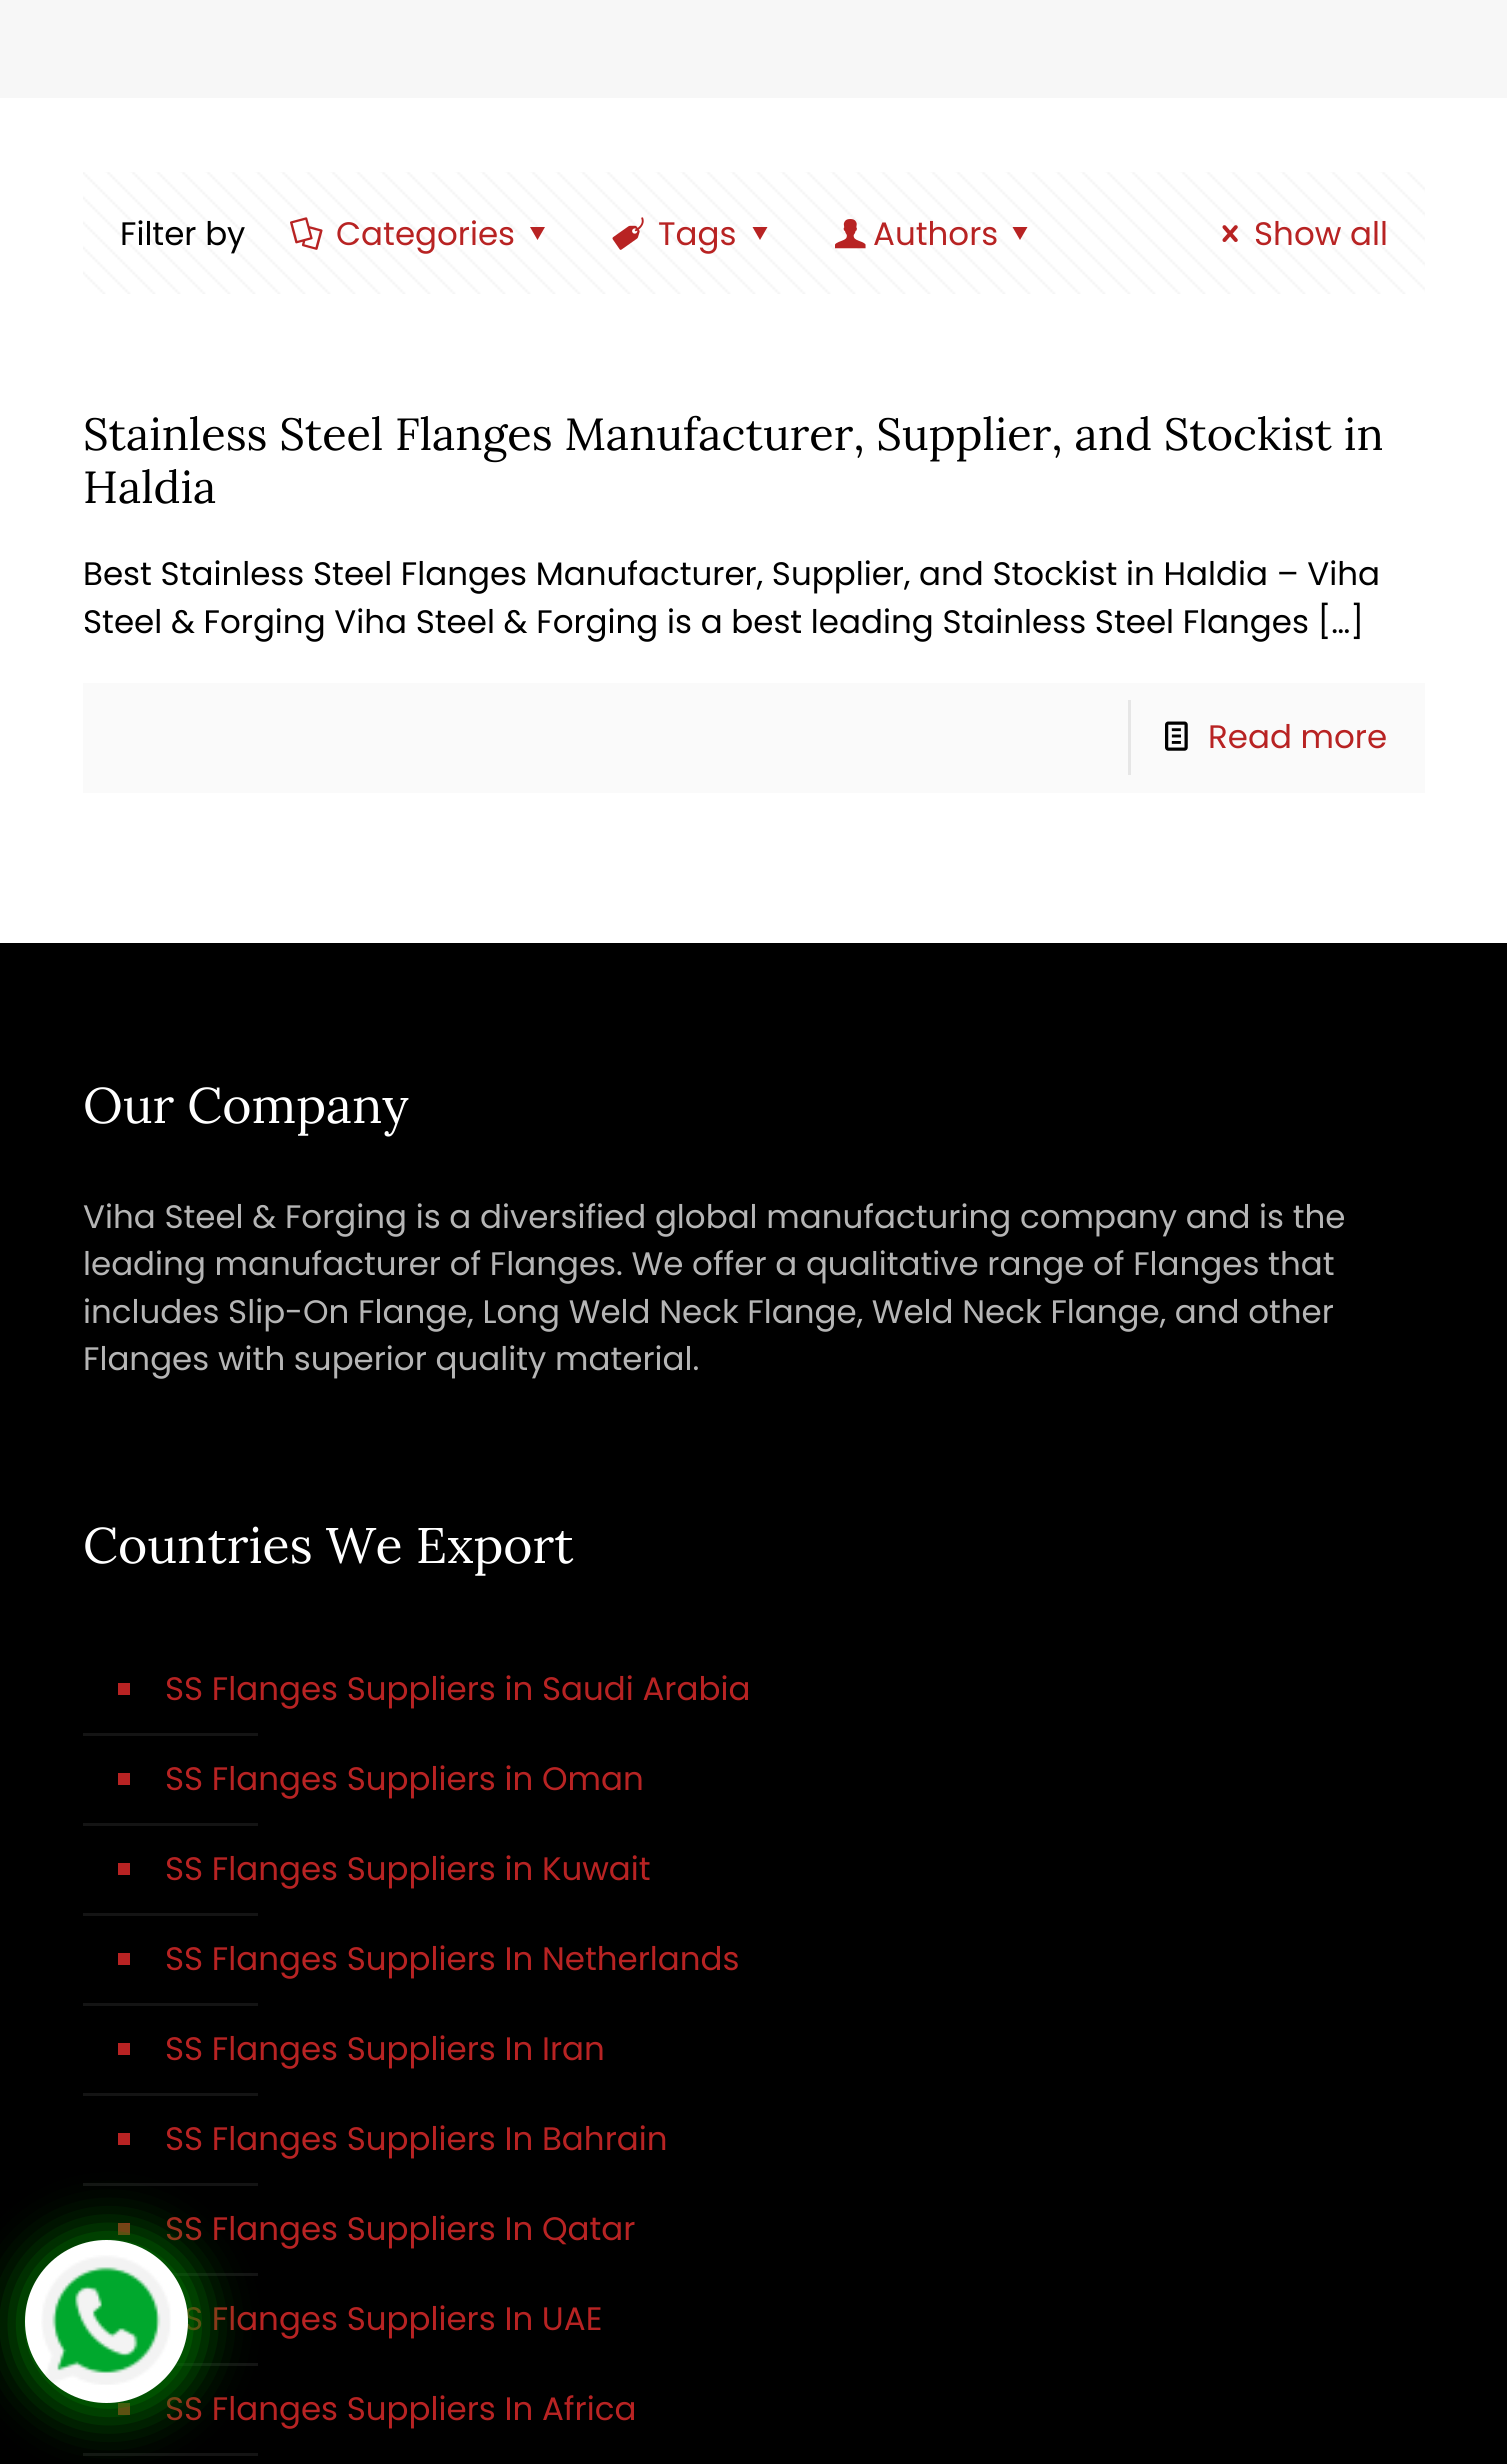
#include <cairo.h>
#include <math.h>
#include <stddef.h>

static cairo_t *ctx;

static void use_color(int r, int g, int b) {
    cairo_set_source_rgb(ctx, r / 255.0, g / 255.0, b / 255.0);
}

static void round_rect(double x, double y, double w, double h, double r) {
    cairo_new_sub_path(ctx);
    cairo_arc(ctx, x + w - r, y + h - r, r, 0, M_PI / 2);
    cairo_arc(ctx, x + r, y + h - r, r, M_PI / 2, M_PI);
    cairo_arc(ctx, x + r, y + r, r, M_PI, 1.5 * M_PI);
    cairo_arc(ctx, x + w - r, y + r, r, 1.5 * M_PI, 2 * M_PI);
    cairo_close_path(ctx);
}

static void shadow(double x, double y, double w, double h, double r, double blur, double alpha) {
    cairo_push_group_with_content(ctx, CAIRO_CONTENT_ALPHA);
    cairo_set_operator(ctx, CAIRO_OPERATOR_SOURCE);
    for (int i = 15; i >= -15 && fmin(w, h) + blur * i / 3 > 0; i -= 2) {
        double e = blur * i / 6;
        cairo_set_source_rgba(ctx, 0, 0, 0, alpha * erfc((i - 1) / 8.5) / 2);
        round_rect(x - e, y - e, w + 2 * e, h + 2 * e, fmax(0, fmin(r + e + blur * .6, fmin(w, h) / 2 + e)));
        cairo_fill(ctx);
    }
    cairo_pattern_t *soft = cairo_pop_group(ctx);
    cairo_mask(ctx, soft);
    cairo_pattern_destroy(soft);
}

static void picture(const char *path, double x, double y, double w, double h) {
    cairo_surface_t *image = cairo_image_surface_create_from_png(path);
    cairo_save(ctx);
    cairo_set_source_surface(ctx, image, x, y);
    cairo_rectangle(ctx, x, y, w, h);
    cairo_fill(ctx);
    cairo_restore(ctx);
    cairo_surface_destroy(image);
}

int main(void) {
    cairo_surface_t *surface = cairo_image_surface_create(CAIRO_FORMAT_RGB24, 1507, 2464);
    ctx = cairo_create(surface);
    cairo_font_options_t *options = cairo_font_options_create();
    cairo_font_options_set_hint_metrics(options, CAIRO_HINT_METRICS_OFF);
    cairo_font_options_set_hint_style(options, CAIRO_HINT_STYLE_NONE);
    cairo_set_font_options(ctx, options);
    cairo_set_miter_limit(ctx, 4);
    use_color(255, 255, 255);
    cairo_paint(ctx);
    use_color(247, 247, 247);
    cairo_rectangle(ctx, 0, 0, 1507, 98);
    cairo_fill(ctx);
    picture("img1.png", 83, 172, 1342, 122);
    cairo_select_font_face(ctx, "Poppins", CAIRO_FONT_SLANT_NORMAL, CAIRO_FONT_WEIGHT_NORMAL);
    cairo_set_font_size(ctx, 32.5);
    use_color(0, 0, 0);
    cairo_move_to(ctx, 120, 245);
    cairo_show_text(ctx, "Filter by");
    picture("img2.png", 290, 217, 33, 33);
    use_color(184, 35, 35);
    cairo_move_to(ctx, 336, 245);
    cairo_show_text(ctx, "Categories");
    cairo_new_path(ctx);
    cairo_move_to(ctx, 545, 227);
    cairo_line_to(ctx, 537.5, 240);
    cairo_line_to(ctx, 530, 227);
    cairo_close_path(ctx);
    cairo_fill(ctx);
    picture("img3.png", 612, 217, 32, 33);
    cairo_move_to(ctx, 658, 245);
    cairo_show_text(ctx, "Tags");
    cairo_new_path(ctx);
    cairo_move_to(ctx, 767.5, 227);
    cairo_line_to(ctx, 760, 240);
    cairo_line_to(ctx, 752.5, 227);
    cairo_close_path(ctx);
    cairo_fill(ctx);
    picture("img4.png", 835, 219, 31, 30);
    cairo_move_to(ctx, 873, 245);
    cairo_show_text(ctx, "Authors");
    cairo_new_path(ctx);
    cairo_move_to(ctx, 1027.5, 227);
    cairo_line_to(ctx, 1020, 240);
    cairo_line_to(ctx, 1012.5, 227);
    cairo_close_path(ctx);
    cairo_fill(ctx);
    picture("img5.png", 1222, 225, 16, 17);
    cairo_move_to(ctx, 1254, 245);
    cairo_show_text(ctx, "Show all");
    cairo_select_font_face(ctx, "Lora", CAIRO_FONT_SLANT_NORMAL, CAIRO_FONT_WEIGHT_NORMAL);
    cairo_set_font_size(ctx, 45);
    use_color(0, 0, 0);
    cairo_move_to(ctx, 83, 450);
    cairo_show_text(ctx, "Stainless Steel Flanges Manufacturer, Supplier, and Stockist in");
    cairo_move_to(ctx, 83, 503);
    cairo_show_text(ctx, "Haldia");
    cairo_select_font_face(ctx, "Poppins", CAIRO_FONT_SLANT_NORMAL, CAIRO_FONT_WEIGHT_NORMAL);
    cairo_set_font_size(ctx, 32.5);
    cairo_move_to(ctx, 83, 585);
    cairo_show_text(ctx, "Best Stainless Steel Flanges Manufacturer, Supplier, and Stockist in Haldia – Viha");
    cairo_move_to(ctx, 83, 633);
    cairo_show_text(ctx, "Steel & Forging Viha Steel & Forging is a best leading Stainless Steel Flanges […]");
    use_color(250, 250, 250);
    cairo_rectangle(ctx, 83, 683, 1342, 110);
    cairo_fill(ctx);
    use_color(230, 230, 230);
    cairo_rectangle(ctx, 1128, 700, 3, 75);
    cairo_fill(ctx);
    picture("img6.png", 1165, 721, 23, 30);
    use_color(184, 35, 35);
    cairo_move_to(ctx, 1208, 748);
    cairo_show_text(ctx, "Read more");
    use_color(0, 0, 0);
    cairo_rectangle(ctx, 0, 943, 1507, 1521);
    cairo_fill(ctx);
    cairo_select_font_face(ctx, "Lora", CAIRO_FONT_SLANT_NORMAL, CAIRO_FONT_WEIGHT_NORMAL);
    cairo_set_font_size(ctx, 50);
    use_color(255, 255, 255);
    cairo_move_to(ctx, 83, 1123);
    cairo_show_text(ctx, "Our Company");
    cairo_select_font_face(ctx, "Poppins", CAIRO_FONT_SLANT_NORMAL, CAIRO_FONT_WEIGHT_NORMAL);
    cairo_set_font_size(ctx, 32.5);
    use_color(181, 181, 181);
    cairo_move_to(ctx, 83, 1228);
    cairo_show_text(ctx, "Viha Steel & Forging is a diversified global manufacturing company and is the");
    cairo_move_to(ctx, 83, 1275);
    cairo_show_text(ctx, "leading manufacturer of Flanges. We offer a qualitative range of Flanges that");
    cairo_move_to(ctx, 83, 1323);
    cairo_show_text(ctx, "includes Slip-On Flange, Long Weld Neck Flange, Weld Neck Flange, and other");
    cairo_move_to(ctx, 83, 1370);
    cairo_show_text(ctx, "Flanges with superior quality material.");
    cairo_select_font_face(ctx, "Lora", CAIRO_FONT_SLANT_NORMAL, CAIRO_FONT_WEIGHT_NORMAL);
    cairo_set_font_size(ctx, 50);
    use_color(255, 255, 255);
    cairo_move_to(ctx, 83, 1563);
    cairo_show_text(ctx, "Countries We Export");
    use_color(184, 35, 35);
    cairo_rectangle(ctx, 118, 1683, 12, 12);
    cairo_fill(ctx);
    cairo_select_font_face(ctx, "Poppins", CAIRO_FONT_SLANT_NORMAL, CAIRO_FONT_WEIGHT_NORMAL);
    cairo_set_font_size(ctx, 32.5);
    cairo_move_to(ctx, 165, 1700);
    cairo_show_text(ctx, "SS Flanges Suppliers in Saudi Arabia");
    use_color(20, 20, 20);
    cairo_rectangle(ctx, 83, 1733, 175, 3);
    cairo_fill(ctx);
    use_color(184, 35, 35);
    cairo_rectangle(ctx, 118, 1773, 12, 12);
    cairo_fill(ctx);
    cairo_move_to(ctx, 165, 1790);
    cairo_show_text(ctx, "SS Flanges Suppliers in Oman");
    use_color(20, 20, 20);
    cairo_rectangle(ctx, 83, 1823, 175, 3);
    cairo_fill(ctx);
    use_color(184, 35, 35);
    cairo_rectangle(ctx, 118, 1863, 12, 12);
    cairo_fill(ctx);
    cairo_move_to(ctx, 165, 1880);
    cairo_show_text(ctx, "SS Flanges Suppliers in Kuwait");
    use_color(20, 20, 20);
    cairo_rectangle(ctx, 83, 1913, 175, 3);
    cairo_fill(ctx);
    use_color(184, 35, 35);
    cairo_rectangle(ctx, 118, 1953, 12, 12);
    cairo_fill(ctx);
    cairo_move_to(ctx, 165, 1970);
    cairo_show_text(ctx, "SS Flanges Suppliers In Netherlands");
    use_color(20, 20, 20);
    cairo_rectangle(ctx, 83, 2003, 175, 3);
    cairo_fill(ctx);
    use_color(184, 35, 35);
    cairo_rectangle(ctx, 118, 2043, 12, 12);
    cairo_fill(ctx);
    cairo_move_to(ctx, 165, 2060);
    cairo_show_text(ctx, "SS Flanges Suppliers In Iran");
    use_color(20, 20, 20);
    cairo_rectangle(ctx, 83, 2093, 175, 3);
    cairo_fill(ctx);
    use_color(184, 35, 35);
    cairo_rectangle(ctx, 118, 2133, 12, 12);
    cairo_fill(ctx);
    cairo_move_to(ctx, 165, 2150);
    cairo_show_text(ctx, "SS Flanges Suppliers In Bahrain");
    use_color(20, 20, 20);
    cairo_rectangle(ctx, 83, 2183, 175, 3);
    cairo_fill(ctx);
    use_color(184, 35, 35);
    cairo_rectangle(ctx, 118, 2223, 12, 12);
    cairo_fill(ctx);
    cairo_move_to(ctx, 165, 2240);
    cairo_show_text(ctx, "SS Flanges Suppliers In Qatar");
    use_color(20, 20, 20);
    cairo_rectangle(ctx, 172, 2273, 86, 3);
    cairo_fill(ctx);
    use_color(184, 35, 35);
    cairo_move_to(ctx, 184, 2330);
    cairo_show_text(ctx, "S Flanges Suppliers In UAE");
    use_color(20, 20, 20);
    cairo_rectangle(ctx, 174, 2363, 84, 3);
    cairo_fill(ctx);
    use_color(184, 35, 35);
    cairo_rectangle(ctx, 118, 2403, 12, 12);
    cairo_fill(ctx);
    cairo_move_to(ctx, 165, 2420);
    cairo_show_text(ctx, "SS Flanges Suppliers In Africa");
    use_color(20, 20, 20);
    cairo_rectangle(ctx, 83, 2453, 175, 3);
    cairo_fill(ctx);
    use_color(0, 128, 0);
    shadow(20, 2235, 178, 178, 89, 25, 1);
    use_color(255, 255, 255);
    cairo_arc(ctx, 106.5, 2321.5, 81.5, 0, 2 * M_PI);
    cairo_fill(ctx);
    picture("img7.png", 41, 2255, 130, 130);
    cairo_surface_write_to_png(surface, "result.png");
    cairo_font_options_destroy(options);
    cairo_destroy(ctx);
    cairo_surface_destroy(surface);
    return 0;
}
